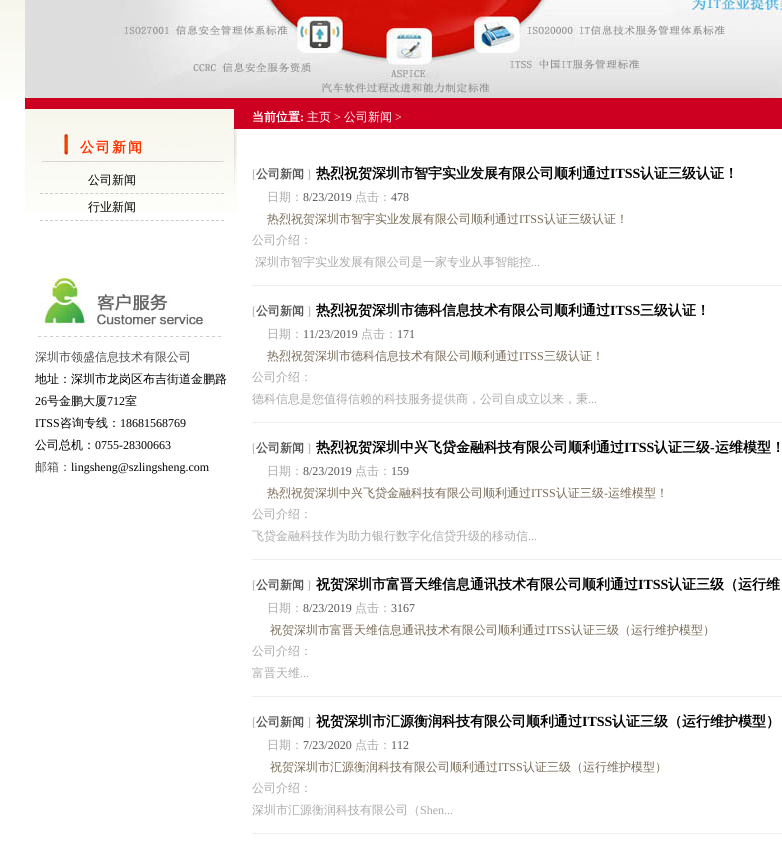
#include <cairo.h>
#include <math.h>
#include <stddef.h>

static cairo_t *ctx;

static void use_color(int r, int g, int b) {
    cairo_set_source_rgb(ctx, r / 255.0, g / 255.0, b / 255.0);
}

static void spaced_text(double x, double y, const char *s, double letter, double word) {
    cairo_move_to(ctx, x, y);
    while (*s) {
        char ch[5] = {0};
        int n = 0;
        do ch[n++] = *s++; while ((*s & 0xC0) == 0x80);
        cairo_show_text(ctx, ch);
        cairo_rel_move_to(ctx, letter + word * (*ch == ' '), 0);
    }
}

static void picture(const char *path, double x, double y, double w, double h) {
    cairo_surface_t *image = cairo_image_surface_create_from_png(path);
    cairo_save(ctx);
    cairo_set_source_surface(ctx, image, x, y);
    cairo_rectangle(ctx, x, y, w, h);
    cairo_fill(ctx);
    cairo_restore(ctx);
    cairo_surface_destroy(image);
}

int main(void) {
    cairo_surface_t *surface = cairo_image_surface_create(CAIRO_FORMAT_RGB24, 782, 850);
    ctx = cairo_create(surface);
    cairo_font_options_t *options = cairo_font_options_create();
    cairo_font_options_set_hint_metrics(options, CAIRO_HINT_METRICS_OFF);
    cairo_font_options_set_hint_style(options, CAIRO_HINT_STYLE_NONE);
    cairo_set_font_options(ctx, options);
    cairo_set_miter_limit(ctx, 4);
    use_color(255, 255, 255);
    cairo_paint(ctx);
    picture("img1.png", 0, 0, 25, 99);
    picture("img2.png", 25, 0, 757, 98);
    use_color(206, 0, 33);
    cairo_rectangle(ctx, 25, 98, 757, 31);
    cairo_fill(ctx);
    cairo_select_font_face(ctx, "WenQuanYi Zen Hei", CAIRO_FONT_SLANT_NORMAL, CAIRO_FONT_WEIGHT_BOLD);
    cairo_set_font_size(ctx, 12);
    use_color(255, 255, 255);
    cairo_move_to(ctx, 252, 121);
    cairo_show_text(ctx, "当前位置");
    cairo_select_font_face(ctx, "Liberation Serif", CAIRO_FONT_SLANT_NORMAL, CAIRO_FONT_WEIGHT_BOLD);
    cairo_move_to(ctx, 300, 121);
    cairo_show_text(ctx, ":");
    cairo_select_font_face(ctx, "WenQuanYi Zen Hei Medium", CAIRO_FONT_SLANT_NORMAL, CAIRO_FONT_WEIGHT_NORMAL);
    cairo_move_to(ctx, 307, 121);
    cairo_show_text(ctx, "主页");
    cairo_select_font_face(ctx, "Liberation Serif", CAIRO_FONT_SLANT_NORMAL, CAIRO_FONT_WEIGHT_NORMAL);
    cairo_move_to(ctx, 334, 121);
    cairo_show_text(ctx, ">");
    cairo_select_font_face(ctx, "WenQuanYi Zen Hei Medium", CAIRO_FONT_SLANT_NORMAL, CAIRO_FONT_WEIGHT_NORMAL);
    cairo_move_to(ctx, 344, 121);
    cairo_show_text(ctx, "公司新闻");
    cairo_select_font_face(ctx, "Liberation Serif", CAIRO_FONT_SLANT_NORMAL, CAIRO_FONT_WEIGHT_NORMAL);
    cairo_move_to(ctx, 395, 121);
    cairo_show_text(ctx, ">");
    picture("img3.png", 25, 109, 212, 104);
    cairo_select_font_face(ctx, "WenQuanYi Zen Hei", CAIRO_FONT_SLANT_NORMAL, CAIRO_FONT_WEIGHT_BOLD);
    cairo_set_font_size(ctx, 14);
    use_color(255, 51, 0);
    spaced_text(80, 152, "公司新闻", 2, 0);
    cairo_new_path(ctx);
    cairo_move_to(ctx, 40, 193.5);
    cairo_line_to(ctx, 224, 193.5);
    use_color(204, 204, 204);
    cairo_set_line_width(ctx, 1);
    cairo_set_dash(ctx, (double[]){3, 2.03}, 2, 0);
    cairo_stroke(ctx);
    cairo_select_font_face(ctx, "WenQuanYi Zen Hei Medium", CAIRO_FONT_SLANT_NORMAL, CAIRO_FONT_WEIGHT_NORMAL);
    cairo_set_font_size(ctx, 12);
    use_color(0, 0, 0);
    cairo_move_to(ctx, 88, 184);
    cairo_show_text(ctx, "公司新闻");
    cairo_new_path(ctx);
    cairo_move_to(ctx, 40, 220.5);
    cairo_line_to(ctx, 224, 220.5);
    use_color(204, 204, 204);
    cairo_stroke(ctx);
    use_color(0, 0, 0);
    cairo_move_to(ctx, 88, 211);
    cairo_show_text(ctx, "行业新闻");
    picture("img4.png", 37, 271, 185, 71);
    use_color(78, 77, 77);
    cairo_move_to(ctx, 35, 361);
    cairo_show_text(ctx, "深圳市领盛信息技术有限公司");
    use_color(0, 0, 0);
    cairo_move_to(ctx, 35, 383);
    cairo_show_text(ctx, "地址：深圳市龙岗区布吉街道金鹏路");
    cairo_select_font_face(ctx, "Liberation Serif", CAIRO_FONT_SLANT_NORMAL, CAIRO_FONT_WEIGHT_NORMAL);
    cairo_move_to(ctx, 35, 405);
    cairo_show_text(ctx, "26");
    cairo_select_font_face(ctx, "WenQuanYi Zen Hei Medium", CAIRO_FONT_SLANT_NORMAL, CAIRO_FONT_WEIGHT_NORMAL);
    cairo_move_to(ctx, 47, 405);
    cairo_show_text(ctx, "号金鹏大厦");
    cairo_select_font_face(ctx, "Liberation Serif", CAIRO_FONT_SLANT_NORMAL, CAIRO_FONT_WEIGHT_NORMAL);
    cairo_move_to(ctx, 107, 405);
    cairo_show_text(ctx, "712");
    cairo_select_font_face(ctx, "WenQuanYi Zen Hei Medium", CAIRO_FONT_SLANT_NORMAL, CAIRO_FONT_WEIGHT_NORMAL);
    cairo_move_to(ctx, 125, 405);
    cairo_show_text(ctx, "室");
    cairo_select_font_face(ctx, "Liberation Serif", CAIRO_FONT_SLANT_NORMAL, CAIRO_FONT_WEIGHT_NORMAL);
    cairo_move_to(ctx, 35, 427);
    cairo_show_text(ctx, "ITSS");
    cairo_select_font_face(ctx, "WenQuanYi Zen Hei Medium", CAIRO_FONT_SLANT_NORMAL, CAIRO_FONT_WEIGHT_NORMAL);
    cairo_move_to(ctx, 60, 427);
    cairo_show_text(ctx, "咨询专线：");
    cairo_select_font_face(ctx, "Liberation Serif", CAIRO_FONT_SLANT_NORMAL, CAIRO_FONT_WEIGHT_NORMAL);
    cairo_move_to(ctx, 120, 427);
    cairo_show_text(ctx, "18681568769");
    cairo_select_font_face(ctx, "WenQuanYi Zen Hei Medium", CAIRO_FONT_SLANT_NORMAL, CAIRO_FONT_WEIGHT_NORMAL);
    cairo_move_to(ctx, 35, 449);
    cairo_show_text(ctx, "公司总机：");
    cairo_select_font_face(ctx, "Liberation Serif", CAIRO_FONT_SLANT_NORMAL, CAIRO_FONT_WEIGHT_NORMAL);
    cairo_move_to(ctx, 95, 449);
    cairo_show_text(ctx, "0755-28300663");
    cairo_select_font_face(ctx, "WenQuanYi Zen Hei Medium", CAIRO_FONT_SLANT_NORMAL, CAIRO_FONT_WEIGHT_NORMAL);
    use_color(78, 77, 77);
    cairo_move_to(ctx, 35, 471);
    cairo_show_text(ctx, "邮箱：");
    cairo_select_font_face(ctx, "Liberation Serif", CAIRO_FONT_SLANT_NORMAL, CAIRO_FONT_WEIGHT_NORMAL);
    use_color(0, 0, 0);
    cairo_move_to(ctx, 71, 471);
    cairo_show_text(ctx, "lingsheng@szlingsheng.com");
    use_color(238, 238, 238);
    cairo_rectangle(ctx, 252, 285, 530, 1);
    cairo_fill(ctx);
    use_color(170, 170, 170);
    cairo_move_to(ctx, 252, 178);
    cairo_show_text(ctx, "[");
    cairo_select_font_face(ctx, "WenQuanYi Zen Hei", CAIRO_FONT_SLANT_NORMAL, CAIRO_FONT_WEIGHT_BOLD);
    use_color(85, 85, 85);
    cairo_move_to(ctx, 256, 178);
    cairo_show_text(ctx, "公司新闻");
    cairo_select_font_face(ctx, "Liberation Serif", CAIRO_FONT_SLANT_NORMAL, CAIRO_FONT_WEIGHT_NORMAL);
    use_color(170, 170, 170);
    cairo_move_to(ctx, 307, 178);
    cairo_show_text(ctx, "]");
    cairo_select_font_face(ctx, "WenQuanYi Zen Hei", CAIRO_FONT_SLANT_NORMAL, CAIRO_FONT_WEIGHT_BOLD);
    cairo_set_font_size(ctx, 14);
    use_color(0, 0, 0);
    cairo_move_to(ctx, 316, 178);
    cairo_show_text(ctx, "热烈祝贺深圳市智宇实业发展有限公司顺利通过");
    cairo_select_font_face(ctx, "Liberation Serif", CAIRO_FONT_SLANT_NORMAL, CAIRO_FONT_WEIGHT_BOLD);
    cairo_move_to(ctx, 610, 178);
    cairo_show_text(ctx, "ITSS");
    cairo_select_font_face(ctx, "WenQuanYi Zen Hei", CAIRO_FONT_SLANT_NORMAL, CAIRO_FONT_WEIGHT_BOLD);
    cairo_move_to(ctx, 640, 178);
    cairo_show_text(ctx, "认证三级认证！");
    cairo_select_font_face(ctx, "WenQuanYi Zen Hei Medium", CAIRO_FONT_SLANT_NORMAL, CAIRO_FONT_WEIGHT_NORMAL);
    cairo_set_font_size(ctx, 12);
    use_color(170, 170, 170);
    cairo_move_to(ctx, 267, 201);
    cairo_show_text(ctx, "日期：");
    cairo_select_font_face(ctx, "Liberation Serif", CAIRO_FONT_SLANT_NORMAL, CAIRO_FONT_WEIGHT_NORMAL);
    use_color(85, 85, 85);
    cairo_move_to(ctx, 303, 201);
    cairo_show_text(ctx, "8/23/2019");
    cairo_select_font_face(ctx, "WenQuanYi Zen Hei Medium", CAIRO_FONT_SLANT_NORMAL, CAIRO_FONT_WEIGHT_NORMAL);
    use_color(170, 170, 170);
    cairo_move_to(ctx, 355, 201);
    cairo_show_text(ctx, "点击：");
    cairo_select_font_face(ctx, "Liberation Serif", CAIRO_FONT_SLANT_NORMAL, CAIRO_FONT_WEIGHT_NORMAL);
    use_color(85, 85, 85);
    cairo_move_to(ctx, 391, 201);
    cairo_show_text(ctx, "478");
    cairo_select_font_face(ctx, "WenQuanYi Zen Hei Medium", CAIRO_FONT_SLANT_NORMAL, CAIRO_FONT_WEIGHT_NORMAL);
    use_color(119, 105, 85);
    cairo_move_to(ctx, 267, 223);
    cairo_show_text(ctx, "热烈祝贺深圳市智宇实业发展有限公司顺利通过");
    cairo_select_font_face(ctx, "Liberation Serif", CAIRO_FONT_SLANT_NORMAL, CAIRO_FONT_WEIGHT_NORMAL);
    cairo_move_to(ctx, 519, 223);
    cairo_show_text(ctx, "ITSS");
    cairo_select_font_face(ctx, "WenQuanYi Zen Hei Medium", CAIRO_FONT_SLANT_NORMAL, CAIRO_FONT_WEIGHT_NORMAL);
    cairo_move_to(ctx, 544, 223);
    cairo_show_text(ctx, "认证三级认证！");
    use_color(170, 170, 170);
    cairo_move_to(ctx, 252, 244);
    cairo_show_text(ctx, "公司介绍：");
    cairo_move_to(ctx, 255, 266);
    cairo_show_text(ctx, "深圳市智宇实业发展有限公司是一家专业从事智能控");
    cairo_select_font_face(ctx, "Liberation Serif", CAIRO_FONT_SLANT_NORMAL, CAIRO_FONT_WEIGHT_NORMAL);
    cairo_move_to(ctx, 531, 266);
    cairo_show_text(ctx, "...");
    use_color(238, 238, 238);
    cairo_rectangle(ctx, 252, 422, 530, 1);
    cairo_fill(ctx);
    use_color(170, 170, 170);
    cairo_move_to(ctx, 252, 315);
    cairo_show_text(ctx, "[");
    cairo_select_font_face(ctx, "WenQuanYi Zen Hei", CAIRO_FONT_SLANT_NORMAL, CAIRO_FONT_WEIGHT_BOLD);
    use_color(85, 85, 85);
    cairo_move_to(ctx, 256, 315);
    cairo_show_text(ctx, "公司新闻");
    cairo_select_font_face(ctx, "Liberation Serif", CAIRO_FONT_SLANT_NORMAL, CAIRO_FONT_WEIGHT_NORMAL);
    use_color(170, 170, 170);
    cairo_move_to(ctx, 307, 315);
    cairo_show_text(ctx, "]");
    cairo_select_font_face(ctx, "WenQuanYi Zen Hei", CAIRO_FONT_SLANT_NORMAL, CAIRO_FONT_WEIGHT_BOLD);
    cairo_set_font_size(ctx, 14);
    use_color(0, 0, 0);
    cairo_move_to(ctx, 316, 315);
    cairo_show_text(ctx, "热烈祝贺深圳市德科信息技术有限公司顺利通过");
    cairo_select_font_face(ctx, "Liberation Serif", CAIRO_FONT_SLANT_NORMAL, CAIRO_FONT_WEIGHT_BOLD);
    cairo_move_to(ctx, 610, 315);
    cairo_show_text(ctx, "ITSS");
    cairo_select_font_face(ctx, "WenQuanYi Zen Hei", CAIRO_FONT_SLANT_NORMAL, CAIRO_FONT_WEIGHT_BOLD);
    cairo_move_to(ctx, 640, 315);
    cairo_show_text(ctx, "三级认证！");
    cairo_select_font_face(ctx, "WenQuanYi Zen Hei Medium", CAIRO_FONT_SLANT_NORMAL, CAIRO_FONT_WEIGHT_NORMAL);
    cairo_set_font_size(ctx, 12);
    use_color(170, 170, 170);
    cairo_move_to(ctx, 267, 338);
    cairo_show_text(ctx, "日期：");
    cairo_select_font_face(ctx, "Liberation Serif", CAIRO_FONT_SLANT_NORMAL, CAIRO_FONT_WEIGHT_NORMAL);
    use_color(85, 85, 85);
    cairo_move_to(ctx, 303, 338);
    cairo_show_text(ctx, "11/23/2019");
    cairo_select_font_face(ctx, "WenQuanYi Zen Hei Medium", CAIRO_FONT_SLANT_NORMAL, CAIRO_FONT_WEIGHT_NORMAL);
    use_color(170, 170, 170);
    cairo_move_to(ctx, 361, 338);
    cairo_show_text(ctx, "点击：");
    cairo_select_font_face(ctx, "Liberation Serif", CAIRO_FONT_SLANT_NORMAL, CAIRO_FONT_WEIGHT_NORMAL);
    use_color(85, 85, 85);
    cairo_move_to(ctx, 397, 338);
    cairo_show_text(ctx, "171");
    cairo_select_font_face(ctx, "WenQuanYi Zen Hei Medium", CAIRO_FONT_SLANT_NORMAL, CAIRO_FONT_WEIGHT_NORMAL);
    use_color(119, 105, 85);
    cairo_move_to(ctx, 267, 360);
    cairo_show_text(ctx, "热烈祝贺深圳市德科信息技术有限公司顺利通过");
    cairo_select_font_face(ctx, "Liberation Serif", CAIRO_FONT_SLANT_NORMAL, CAIRO_FONT_WEIGHT_NORMAL);
    cairo_move_to(ctx, 519, 360);
    cairo_show_text(ctx, "ITSS");
    cairo_select_font_face(ctx, "WenQuanYi Zen Hei Medium", CAIRO_FONT_SLANT_NORMAL, CAIRO_FONT_WEIGHT_NORMAL);
    cairo_move_to(ctx, 544, 360);
    cairo_show_text(ctx, "三级认证！");
    use_color(170, 170, 170);
    cairo_move_to(ctx, 252, 381);
    cairo_show_text(ctx, "公司介绍：");
    cairo_move_to(ctx, 252, 403);
    cairo_show_text(ctx, "德科信息是您值得信赖的科技服务提供商，公司自成立以来，秉");
    cairo_select_font_face(ctx, "Liberation Serif", CAIRO_FONT_SLANT_NORMAL, CAIRO_FONT_WEIGHT_NORMAL);
    cairo_move_to(ctx, 588, 403);
    cairo_show_text(ctx, "...");
    use_color(238, 238, 238);
    cairo_rectangle(ctx, 252, 559, 530, 1);
    cairo_fill(ctx);
    use_color(170, 170, 170);
    cairo_move_to(ctx, 252, 452);
    cairo_show_text(ctx, "[");
    cairo_select_font_face(ctx, "WenQuanYi Zen Hei", CAIRO_FONT_SLANT_NORMAL, CAIRO_FONT_WEIGHT_BOLD);
    use_color(85, 85, 85);
    cairo_move_to(ctx, 256, 452);
    cairo_show_text(ctx, "公司新闻");
    cairo_select_font_face(ctx, "Liberation Serif", CAIRO_FONT_SLANT_NORMAL, CAIRO_FONT_WEIGHT_NORMAL);
    use_color(170, 170, 170);
    cairo_move_to(ctx, 307, 452);
    cairo_show_text(ctx, "]");
    cairo_select_font_face(ctx, "WenQuanYi Zen Hei", CAIRO_FONT_SLANT_NORMAL, CAIRO_FONT_WEIGHT_BOLD);
    cairo_set_font_size(ctx, 14);
    use_color(0, 0, 0);
    cairo_move_to(ctx, 316, 452);
    cairo_show_text(ctx, "热烈祝贺深圳中兴飞贷金融科技有限公司顺利通过");
    cairo_select_font_face(ctx, "Liberation Serif", CAIRO_FONT_SLANT_NORMAL, CAIRO_FONT_WEIGHT_BOLD);
    cairo_move_to(ctx, 624, 452);
    cairo_show_text(ctx, "ITSS");
    cairo_select_font_face(ctx, "WenQuanYi Zen Hei", CAIRO_FONT_SLANT_NORMAL, CAIRO_FONT_WEIGHT_BOLD);
    cairo_move_to(ctx, 654, 452);
    cairo_show_text(ctx, "认证三级");
    cairo_select_font_face(ctx, "Liberation Serif", CAIRO_FONT_SLANT_NORMAL, CAIRO_FONT_WEIGHT_BOLD);
    cairo_move_to(ctx, 710, 452);
    cairo_show_text(ctx, "-");
    cairo_select_font_face(ctx, "WenQuanYi Zen Hei", CAIRO_FONT_SLANT_NORMAL, CAIRO_FONT_WEIGHT_BOLD);
    cairo_move_to(ctx, 715, 452);
    cairo_show_text(ctx, "运维模型！");
    cairo_select_font_face(ctx, "WenQuanYi Zen Hei Medium", CAIRO_FONT_SLANT_NORMAL, CAIRO_FONT_WEIGHT_NORMAL);
    cairo_set_font_size(ctx, 12);
    use_color(170, 170, 170);
    cairo_move_to(ctx, 267, 475);
    cairo_show_text(ctx, "日期：");
    cairo_select_font_face(ctx, "Liberation Serif", CAIRO_FONT_SLANT_NORMAL, CAIRO_FONT_WEIGHT_NORMAL);
    use_color(85, 85, 85);
    cairo_move_to(ctx, 303, 475);
    cairo_show_text(ctx, "8/23/2019");
    cairo_select_font_face(ctx, "WenQuanYi Zen Hei Medium", CAIRO_FONT_SLANT_NORMAL, CAIRO_FONT_WEIGHT_NORMAL);
    use_color(170, 170, 170);
    cairo_move_to(ctx, 355, 475);
    cairo_show_text(ctx, "点击：");
    cairo_select_font_face(ctx, "Liberation Serif", CAIRO_FONT_SLANT_NORMAL, CAIRO_FONT_WEIGHT_NORMAL);
    use_color(85, 85, 85);
    cairo_move_to(ctx, 391, 475);
    cairo_show_text(ctx, "159");
    cairo_select_font_face(ctx, "WenQuanYi Zen Hei Medium", CAIRO_FONT_SLANT_NORMAL, CAIRO_FONT_WEIGHT_NORMAL);
    use_color(119, 105, 85);
    cairo_move_to(ctx, 267, 497);
    cairo_show_text(ctx, "热烈祝贺深圳中兴飞贷金融科技有限公司顺利通过");
    cairo_select_font_face(ctx, "Liberation Serif", CAIRO_FONT_SLANT_NORMAL, CAIRO_FONT_WEIGHT_NORMAL);
    cairo_move_to(ctx, 531, 497);
    cairo_show_text(ctx, "ITSS");
    cairo_select_font_face(ctx, "WenQuanYi Zen Hei Medium", CAIRO_FONT_SLANT_NORMAL, CAIRO_FONT_WEIGHT_NORMAL);
    cairo_move_to(ctx, 556, 497);
    cairo_show_text(ctx, "认证三级");
    cairo_select_font_face(ctx, "Liberation Serif", CAIRO_FONT_SLANT_NORMAL, CAIRO_FONT_WEIGHT_NORMAL);
    cairo_move_to(ctx, 604, 497);
    cairo_show_text(ctx, "-");
    cairo_select_font_face(ctx, "WenQuanYi Zen Hei Medium", CAIRO_FONT_SLANT_NORMAL, CAIRO_FONT_WEIGHT_NORMAL);
    cairo_move_to(ctx, 608, 497);
    cairo_show_text(ctx, "运维模型！");
    use_color(170, 170, 170);
    cairo_move_to(ctx, 252, 518);
    cairo_show_text(ctx, "公司介绍：");
    cairo_move_to(ctx, 252, 540);
    cairo_show_text(ctx, "飞贷金融科技作为助力银行数字化信贷升级的移动信");
    cairo_select_font_face(ctx, "Liberation Serif", CAIRO_FONT_SLANT_NORMAL, CAIRO_FONT_WEIGHT_NORMAL);
    cairo_move_to(ctx, 528, 540);
    cairo_show_text(ctx, "...");
    use_color(238, 238, 238);
    cairo_rectangle(ctx, 252, 696, 530, 1);
    cairo_fill(ctx);
    use_color(170, 170, 170);
    cairo_move_to(ctx, 252, 589);
    cairo_show_text(ctx, "[");
    cairo_select_font_face(ctx, "WenQuanYi Zen Hei", CAIRO_FONT_SLANT_NORMAL, CAIRO_FONT_WEIGHT_BOLD);
    use_color(85, 85, 85);
    cairo_move_to(ctx, 256, 589);
    cairo_show_text(ctx, "公司新闻");
    cairo_select_font_face(ctx, "Liberation Serif", CAIRO_FONT_SLANT_NORMAL, CAIRO_FONT_WEIGHT_NORMAL);
    use_color(170, 170, 170);
    cairo_move_to(ctx, 307, 589);
    cairo_show_text(ctx, "]");
    cairo_select_font_face(ctx, "WenQuanYi Zen Hei", CAIRO_FONT_SLANT_NORMAL, CAIRO_FONT_WEIGHT_BOLD);
    cairo_set_font_size(ctx, 14);
    use_color(0, 0, 0);
    cairo_move_to(ctx, 316, 589);
    cairo_show_text(ctx, "祝贺深圳市富晋天维信息通讯技术有限公司顺利通过");
    cairo_select_font_face(ctx, "Liberation Serif", CAIRO_FONT_SLANT_NORMAL, CAIRO_FONT_WEIGHT_BOLD);
    cairo_move_to(ctx, 638, 589);
    cairo_show_text(ctx, "ITSS");
    cairo_select_font_face(ctx, "WenQuanYi Zen Hei", CAIRO_FONT_SLANT_NORMAL, CAIRO_FONT_WEIGHT_BOLD);
    cairo_move_to(ctx, 668, 589);
    cairo_show_text(ctx, "认证三级（运行维");
    cairo_select_font_face(ctx, "WenQuanYi Zen Hei Medium", CAIRO_FONT_SLANT_NORMAL, CAIRO_FONT_WEIGHT_NORMAL);
    cairo_set_font_size(ctx, 12);
    use_color(170, 170, 170);
    cairo_move_to(ctx, 267, 612);
    cairo_show_text(ctx, "日期：");
    cairo_select_font_face(ctx, "Liberation Serif", CAIRO_FONT_SLANT_NORMAL, CAIRO_FONT_WEIGHT_NORMAL);
    use_color(85, 85, 85);
    cairo_move_to(ctx, 303, 612);
    cairo_show_text(ctx, "8/23/2019");
    cairo_select_font_face(ctx, "WenQuanYi Zen Hei Medium", CAIRO_FONT_SLANT_NORMAL, CAIRO_FONT_WEIGHT_NORMAL);
    use_color(170, 170, 170);
    cairo_move_to(ctx, 355, 612);
    cairo_show_text(ctx, "点击：");
    cairo_select_font_face(ctx, "Liberation Serif", CAIRO_FONT_SLANT_NORMAL, CAIRO_FONT_WEIGHT_NORMAL);
    use_color(85, 85, 85);
    cairo_move_to(ctx, 391, 612);
    cairo_show_text(ctx, "3167");
    cairo_select_font_face(ctx, "WenQuanYi Zen Hei Medium", CAIRO_FONT_SLANT_NORMAL, CAIRO_FONT_WEIGHT_NORMAL);
    use_color(119, 105, 85);
    cairo_move_to(ctx, 270, 634);
    cairo_show_text(ctx, "祝贺深圳市富晋天维信息通讯技术有限公司顺利通过");
    cairo_select_font_face(ctx, "Liberation Serif", CAIRO_FONT_SLANT_NORMAL, CAIRO_FONT_WEIGHT_NORMAL);
    cairo_move_to(ctx, 546, 634);
    cairo_show_text(ctx, "ITSS");
    cairo_select_font_face(ctx, "WenQuanYi Zen Hei Medium", CAIRO_FONT_SLANT_NORMAL, CAIRO_FONT_WEIGHT_NORMAL);
    cairo_move_to(ctx, 571, 634);
    cairo_show_text(ctx, "认证三级（运行维护模型）");
    use_color(170, 170, 170);
    cairo_move_to(ctx, 252, 655);
    cairo_show_text(ctx, "公司介绍：");
    cairo_move_to(ctx, 252, 677);
    cairo_show_text(ctx, "富晋天维");
    cairo_select_font_face(ctx, "Liberation Serif", CAIRO_FONT_SLANT_NORMAL, CAIRO_FONT_WEIGHT_NORMAL);
    cairo_move_to(ctx, 300, 677);
    cairo_show_text(ctx, "...");
    use_color(238, 238, 238);
    cairo_rectangle(ctx, 252, 833, 530, 1);
    cairo_fill(ctx);
    use_color(170, 170, 170);
    cairo_move_to(ctx, 252, 726);
    cairo_show_text(ctx, "[");
    cairo_select_font_face(ctx, "WenQuanYi Zen Hei", CAIRO_FONT_SLANT_NORMAL, CAIRO_FONT_WEIGHT_BOLD);
    use_color(85, 85, 85);
    cairo_move_to(ctx, 256, 726);
    cairo_show_text(ctx, "公司新闻");
    cairo_select_font_face(ctx, "Liberation Serif", CAIRO_FONT_SLANT_NORMAL, CAIRO_FONT_WEIGHT_NORMAL);
    use_color(170, 170, 170);
    cairo_move_to(ctx, 307, 726);
    cairo_show_text(ctx, "]");
    cairo_select_font_face(ctx, "WenQuanYi Zen Hei", CAIRO_FONT_SLANT_NORMAL, CAIRO_FONT_WEIGHT_BOLD);
    cairo_set_font_size(ctx, 14);
    use_color(0, 0, 0);
    cairo_move_to(ctx, 316, 726);
    cairo_show_text(ctx, "祝贺深圳市汇源衡润科技有限公司顺利通过");
    cairo_select_font_face(ctx, "Liberation Serif", CAIRO_FONT_SLANT_NORMAL, CAIRO_FONT_WEIGHT_BOLD);
    cairo_move_to(ctx, 582, 726);
    cairo_show_text(ctx, "ITSS");
    cairo_select_font_face(ctx, "WenQuanYi Zen Hei", CAIRO_FONT_SLANT_NORMAL, CAIRO_FONT_WEIGHT_BOLD);
    cairo_move_to(ctx, 612, 726);
    cairo_show_text(ctx, "认证三级（运行维护模型）");
    cairo_select_font_face(ctx, "WenQuanYi Zen Hei Medium", CAIRO_FONT_SLANT_NORMAL, CAIRO_FONT_WEIGHT_NORMAL);
    cairo_set_font_size(ctx, 12);
    use_color(170, 170, 170);
    cairo_move_to(ctx, 267, 749);
    cairo_show_text(ctx, "日期：");
    cairo_select_font_face(ctx, "Liberation Serif", CAIRO_FONT_SLANT_NORMAL, CAIRO_FONT_WEIGHT_NORMAL);
    use_color(85, 85, 85);
    cairo_move_to(ctx, 303, 749);
    cairo_show_text(ctx, "7/23/2020");
    cairo_select_font_face(ctx, "WenQuanYi Zen Hei Medium", CAIRO_FONT_SLANT_NORMAL, CAIRO_FONT_WEIGHT_NORMAL);
    use_color(170, 170, 170);
    cairo_move_to(ctx, 355, 749);
    cairo_show_text(ctx, "点击：");
    cairo_select_font_face(ctx, "Liberation Serif", CAIRO_FONT_SLANT_NORMAL, CAIRO_FONT_WEIGHT_NORMAL);
    use_color(85, 85, 85);
    cairo_move_to(ctx, 391, 749);
    cairo_show_text(ctx, "112");
    cairo_select_font_face(ctx, "WenQuanYi Zen Hei Medium", CAIRO_FONT_SLANT_NORMAL, CAIRO_FONT_WEIGHT_NORMAL);
    use_color(119, 105, 85);
    cairo_move_to(ctx, 270, 771);
    cairo_show_text(ctx, "祝贺深圳市汇源衡润科技有限公司顺利通过");
    cairo_select_font_face(ctx, "Liberation Serif", CAIRO_FONT_SLANT_NORMAL, CAIRO_FONT_WEIGHT_NORMAL);
    cairo_move_to(ctx, 498, 771);
    cairo_show_text(ctx, "ITSS");
    cairo_select_font_face(ctx, "WenQuanYi Zen Hei Medium", CAIRO_FONT_SLANT_NORMAL, CAIRO_FONT_WEIGHT_NORMAL);
    cairo_move_to(ctx, 523, 771);
    cairo_show_text(ctx, "认证三级（运行维护模型）");
    use_color(170, 170, 170);
    cairo_move_to(ctx, 252, 792);
    cairo_show_text(ctx, "公司介绍：");
    cairo_move_to(ctx, 252, 814);
    cairo_show_text(ctx, "深圳市汇源衡润科技有限公司（");
    cairo_select_font_face(ctx, "Liberation Serif", CAIRO_FONT_SLANT_NORMAL, CAIRO_FONT_WEIGHT_NORMAL);
    cairo_move_to(ctx, 420, 814);
    cairo_show_text(ctx, "Shen...");
    cairo_surface_write_to_png(surface, "result.png");
    cairo_font_options_destroy(options);
    cairo_destroy(ctx);
    cairo_surface_destroy(surface);
    return 0;
}
